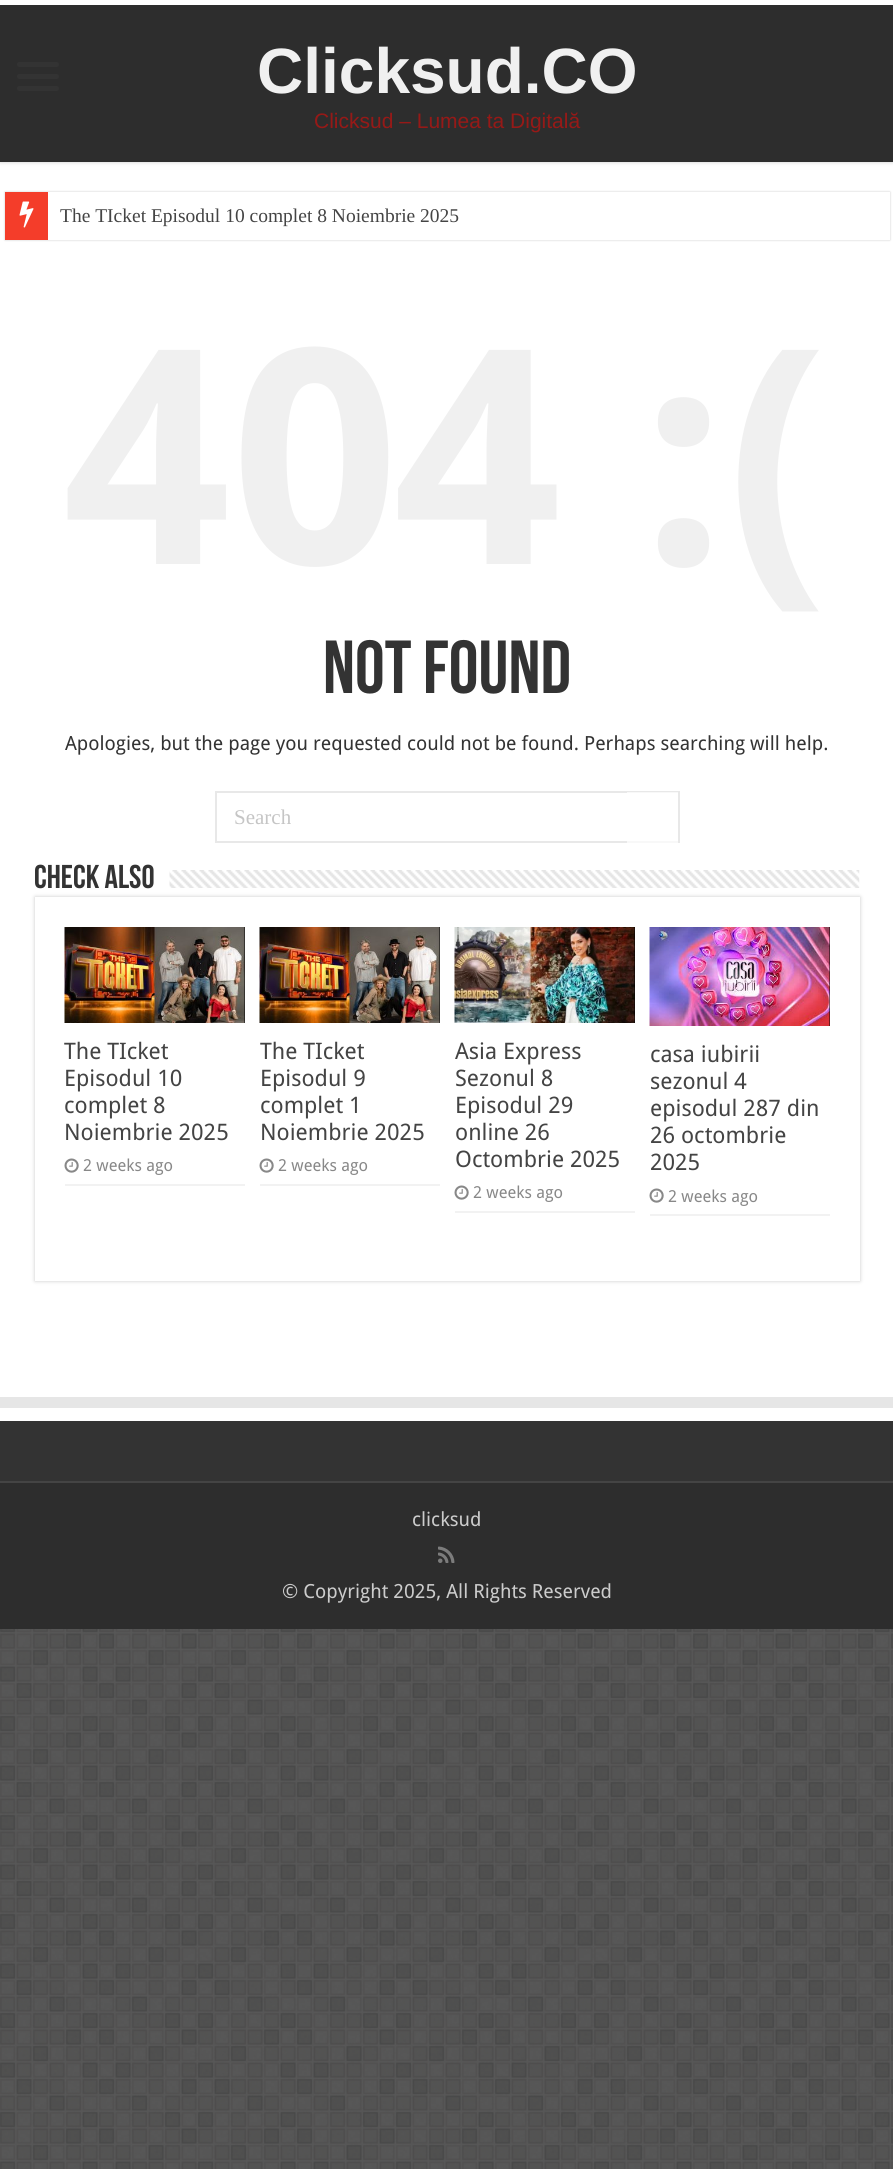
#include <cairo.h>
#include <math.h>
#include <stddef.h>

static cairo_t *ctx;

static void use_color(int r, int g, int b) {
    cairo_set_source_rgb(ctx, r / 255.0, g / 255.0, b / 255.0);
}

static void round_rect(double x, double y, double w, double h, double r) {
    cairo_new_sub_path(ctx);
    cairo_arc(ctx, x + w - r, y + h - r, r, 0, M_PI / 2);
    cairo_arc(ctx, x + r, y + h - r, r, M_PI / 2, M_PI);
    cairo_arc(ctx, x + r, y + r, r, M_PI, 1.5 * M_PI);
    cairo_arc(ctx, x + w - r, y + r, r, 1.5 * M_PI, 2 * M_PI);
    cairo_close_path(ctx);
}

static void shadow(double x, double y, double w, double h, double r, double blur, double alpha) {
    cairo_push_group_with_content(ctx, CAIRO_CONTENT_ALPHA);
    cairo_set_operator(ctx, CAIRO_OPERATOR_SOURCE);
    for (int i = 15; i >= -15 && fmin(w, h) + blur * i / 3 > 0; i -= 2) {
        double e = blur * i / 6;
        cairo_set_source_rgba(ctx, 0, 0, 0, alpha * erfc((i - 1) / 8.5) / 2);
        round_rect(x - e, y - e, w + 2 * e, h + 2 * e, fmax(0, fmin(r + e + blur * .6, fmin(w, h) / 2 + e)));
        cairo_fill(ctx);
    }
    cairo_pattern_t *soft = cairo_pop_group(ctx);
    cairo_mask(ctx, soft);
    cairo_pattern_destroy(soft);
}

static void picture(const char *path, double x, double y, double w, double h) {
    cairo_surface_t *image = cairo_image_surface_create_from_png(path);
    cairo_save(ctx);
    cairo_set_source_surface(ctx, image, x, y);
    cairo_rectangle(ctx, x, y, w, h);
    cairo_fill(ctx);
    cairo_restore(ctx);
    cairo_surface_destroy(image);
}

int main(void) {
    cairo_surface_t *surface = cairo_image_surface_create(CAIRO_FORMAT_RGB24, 893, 2169);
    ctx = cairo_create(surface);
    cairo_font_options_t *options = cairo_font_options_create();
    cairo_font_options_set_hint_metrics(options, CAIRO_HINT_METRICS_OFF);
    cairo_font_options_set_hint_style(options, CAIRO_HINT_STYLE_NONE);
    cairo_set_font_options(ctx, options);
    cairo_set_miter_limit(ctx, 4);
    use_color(45, 45, 45);
    cairo_paint(ctx);
    picture("img1.png", 0, 1629, 893, 540);
    use_color(255, 255, 255);
    cairo_rectangle(ctx, 0, 162, 893, 1259);
    cairo_fill(ctx);
    use_color(202, 202, 202);
    shadow(0, 0, 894, 162, 0, 2, 1);
    use_color(45, 45, 45);
    cairo_rectangle(ctx, 0, 5, 893, 157);
    cairo_fill(ctx);
    use_color(255, 255, 255);
    cairo_rectangle(ctx, 0, 0, 893, 5);
    cairo_fill(ctx);
    use_color(51, 51, 51);
    round_rect(17, 62, 42, 5, 2.5);
    cairo_fill(ctx);
    round_rect(17, 74, 42, 5, 2.5);
    cairo_fill(ctx);
    round_rect(17, 86, 42, 5, 2.5);
    cairo_fill(ctx);
    cairo_select_font_face(ctx, "Liberation Sans", CAIRO_FONT_SLANT_NORMAL, CAIRO_FONT_WEIGHT_BOLD);
    cairo_set_font_size(ctx, 64);
    use_color(240, 240, 240);
    cairo_move_to(ctx, 257, 93);
    cairo_show_text(ctx, "Clicksud.CO");
    cairo_select_font_face(ctx, "Liberation Sans", CAIRO_FONT_SLANT_NORMAL, CAIRO_FONT_WEIGHT_NORMAL);
    cairo_set_font_size(ctx, 21);
    use_color(150, 25, 23);
    cairo_move_to(ctx, 314, 128);
    cairo_show_text(ctx, "Clicksud – Lumea ta Digitală");
    use_color(202, 202, 202);
    shadow(5, 192, 885, 48, 0, 1, 1);
    use_color(255, 255, 255);
    cairo_rectangle(ctx, 48, 192, 842, 48);
    cairo_fill(ctx);
    use_color(244, 61, 42);
    cairo_rectangle(ctx, 5, 192, 43, 48);
    cairo_fill(ctx);
    picture("img2.png", 19, 201, 15, 27);
    cairo_select_font_face(ctx, "Liberation Serif", CAIRO_FONT_SLANT_NORMAL, CAIRO_FONT_WEIGHT_NORMAL);
    cairo_set_font_size(ctx, 19.5);
    use_color(68, 68, 68);
    cairo_move_to(ctx, 60, 222);
    cairo_show_text(ctx, "The TIcket Episodul 10 complet 8 Noiembrie 2025");
    cairo_select_font_face(ctx, "Droid Sans", CAIRO_FONT_SLANT_NORMAL, CAIRO_FONT_WEIGHT_BOLD);
    cairo_set_font_size(ctx, 300);
    use_color(240, 240, 240);
    cairo_move_to(ctx, 67, 564);
    cairo_show_text(ctx, "404 :(");
    cairo_select_font_face(ctx, "Bebas Neue", CAIRO_FONT_SLANT_NORMAL, CAIRO_FONT_WEIGHT_BOLD);
    cairo_set_font_size(ctx, 75);
    use_color(51, 51, 51);
    cairo_move_to(ctx, 323, 693);
    cairo_show_text(ctx, "Not Found");
    cairo_select_font_face(ctx, "Droid Sans", CAIRO_FONT_SLANT_NORMAL, CAIRO_FONT_WEIGHT_NORMAL);
    cairo_set_font_size(ctx, 19.5);
    cairo_move_to(ctx, 65, 750);
    cairo_show_text(ctx, "Apologies, but the page you requested could not be found. Perhaps searching will help.");
    cairo_rectangle(ctx, 216, 792, 463, 50);
    use_color(232, 232, 232);
    cairo_stroke(ctx);
    cairo_select_font_face(ctx, "Liberation Serif", CAIRO_FONT_SLANT_NORMAL, CAIRO_FONT_WEIGHT_NORMAL);
    cairo_set_font_size(ctx, 21);
    use_color(197, 197, 197);
    cairo_move_to(ctx, 234, 824);
    cairo_show_text(ctx, "Search");
    cairo_set_source_rgba(ctx, 1, 1, 1, 0.7);
    cairo_rectangle(ctx, 627, 792, 51, 51);
    cairo_fill(ctx);
    cairo_select_font_face(ctx, "Bebas Neue", CAIRO_FONT_SLANT_NORMAL, CAIRO_FONT_WEIGHT_BOLD);
    cairo_set_font_size(ctx, 33);
    use_color(51, 51, 51);
    cairo_move_to(ctx, 34, 888);
    cairo_show_text(ctx, "Check Also");
    picture("img3.png", 169, 870, 691, 18);
    use_color(202, 202, 202);
    shadow(35, 897, 825, 384, 0, 2, 1);
    use_color(255, 255, 255);
    cairo_rectangle(ctx, 35, 897, 825, 384);
    cairo_fill(ctx);
    use_color(0, 0, 0);
    cairo_rectangle(ctx, 244, 927, 1, 96);
    cairo_fill(ctx);
    picture("img4.png", 64, 927, 181, 96);
    cairo_select_font_face(ctx, "Droid Sans", CAIRO_FONT_SLANT_NORMAL, CAIRO_FONT_WEIGHT_NORMAL);
    cairo_set_font_size(ctx, 22.75);
    use_color(68, 68, 68);
    cairo_move_to(ctx, 64, 1059);
    cairo_show_text(ctx, "The TIcket");
    cairo_move_to(ctx, 64, 1086);
    cairo_show_text(ctx, "Episodul 10");
    cairo_move_to(ctx, 64, 1113);
    cairo_show_text(ctx, "complet 8");
    cairo_move_to(ctx, 64, 1140);
    cairo_show_text(ctx, "Noiembrie 2025");
    use_color(242, 242, 242);
    cairo_rectangle(ctx, 65, 1184, 180, 2);
    cairo_fill(ctx);
    picture("img5.png", 64, 1158, 15, 15);
    cairo_set_font_size(ctx, 16.5);
    use_color(136, 136, 136);
    cairo_move_to(ctx, 83, 1171);
    cairo_show_text(ctx, "2 weeks ago");
    use_color(0, 0, 0);
    cairo_rectangle(ctx, 439, 927, 1, 96);
    cairo_fill(ctx);
    picture("img4.png", 259, 927, 181, 96);
    cairo_set_font_size(ctx, 22.75);
    use_color(68, 68, 68);
    cairo_move_to(ctx, 260, 1059);
    cairo_show_text(ctx, "The TIcket");
    cairo_move_to(ctx, 260, 1086);
    cairo_show_text(ctx, "Episodul 9");
    cairo_move_to(ctx, 260, 1113);
    cairo_show_text(ctx, "complet 1");
    cairo_move_to(ctx, 260, 1140);
    cairo_show_text(ctx, "Noiembrie 2025");
    use_color(242, 242, 242);
    cairo_rectangle(ctx, 260, 1184, 180, 2);
    cairo_fill(ctx);
    picture("img5.png", 259, 1158, 15, 15);
    cairo_set_font_size(ctx, 16.5);
    use_color(136, 136, 136);
    cairo_move_to(ctx, 278, 1171);
    cairo_show_text(ctx, "2 weeks ago");
    use_color(0, 0, 0);
    cairo_rectangle(ctx, 634, 927, 1, 96);
    cairo_fill(ctx);
    picture("img6.png", 454, 927, 181, 96);
    cairo_set_font_size(ctx, 22.75);
    use_color(68, 68, 68);
    cairo_move_to(ctx, 455, 1059);
    cairo_show_text(ctx, "Asia Express");
    cairo_move_to(ctx, 455, 1086);
    cairo_show_text(ctx, "Sezonul 8");
    cairo_move_to(ctx, 455, 1113);
    cairo_show_text(ctx, "Episodul 29");
    cairo_move_to(ctx, 455, 1140);
    cairo_show_text(ctx, "online 26");
    cairo_move_to(ctx, 455, 1167);
    cairo_show_text(ctx, "Octombrie 2025");
    use_color(242, 242, 242);
    cairo_rectangle(ctx, 455, 1211, 180, 2);
    cairo_fill(ctx);
    picture("img5.png", 454, 1185, 15, 15);
    cairo_set_font_size(ctx, 16.5);
    use_color(136, 136, 136);
    cairo_move_to(ctx, 473, 1198);
    cairo_show_text(ctx, "2 weeks ago");
    use_color(0, 0, 0);
    cairo_rectangle(ctx, 829, 927, 1, 99);
    cairo_fill(ctx);
    picture("img7.png", 649, 927, 181, 99);
    cairo_set_font_size(ctx, 22.75);
    use_color(68, 68, 68);
    cairo_move_to(ctx, 650, 1062);
    cairo_show_text(ctx, "casa iubirii");
    cairo_move_to(ctx, 650, 1089);
    cairo_show_text(ctx, "sezonul 4");
    cairo_move_to(ctx, 650, 1116);
    cairo_show_text(ctx, "episodul 287 din");
    cairo_move_to(ctx, 650, 1143);
    cairo_show_text(ctx, "26 octombrie");
    cairo_move_to(ctx, 650, 1170);
    cairo_show_text(ctx, "2025");
    use_color(242, 242, 242);
    cairo_rectangle(ctx, 650, 1214, 180, 2);
    cairo_fill(ctx);
    picture("img5.png", 649, 1188, 15, 15);
    cairo_set_font_size(ctx, 16.5);
    use_color(136, 136, 136);
    cairo_move_to(ctx, 668, 1202);
    cairo_show_text(ctx, "2 weeks ago");
    use_color(230, 230, 230);
    cairo_rectangle(ctx, 0, 1397, 893, 11);
    cairo_fill(ctx);
    use_color(51, 51, 51);
    cairo_rectangle(ctx, 0, 1421, 893, 60);
    cairo_fill(ctx);
    use_color(68, 68, 68);
    cairo_rectangle(ctx, 0, 1481, 893, 2);
    cairo_fill(ctx);
    cairo_set_font_size(ctx, 19.5);
    use_color(204, 204, 204);
    cairo_move_to(ctx, 412, 1526);
    cairo_show_text(ctx, "clicksud");
    picture("img8.png", 438, 1546, 17, 17);
    cairo_move_to(ctx, 282, 1598);
    cairo_show_text(ctx, "© Copyright 2025, All Rights Reserved");
    cairo_surface_write_to_png(surface, "result.png");
    cairo_font_options_destroy(options);
    cairo_destroy(ctx);
    cairo_surface_destroy(surface);
    return 0;
}
